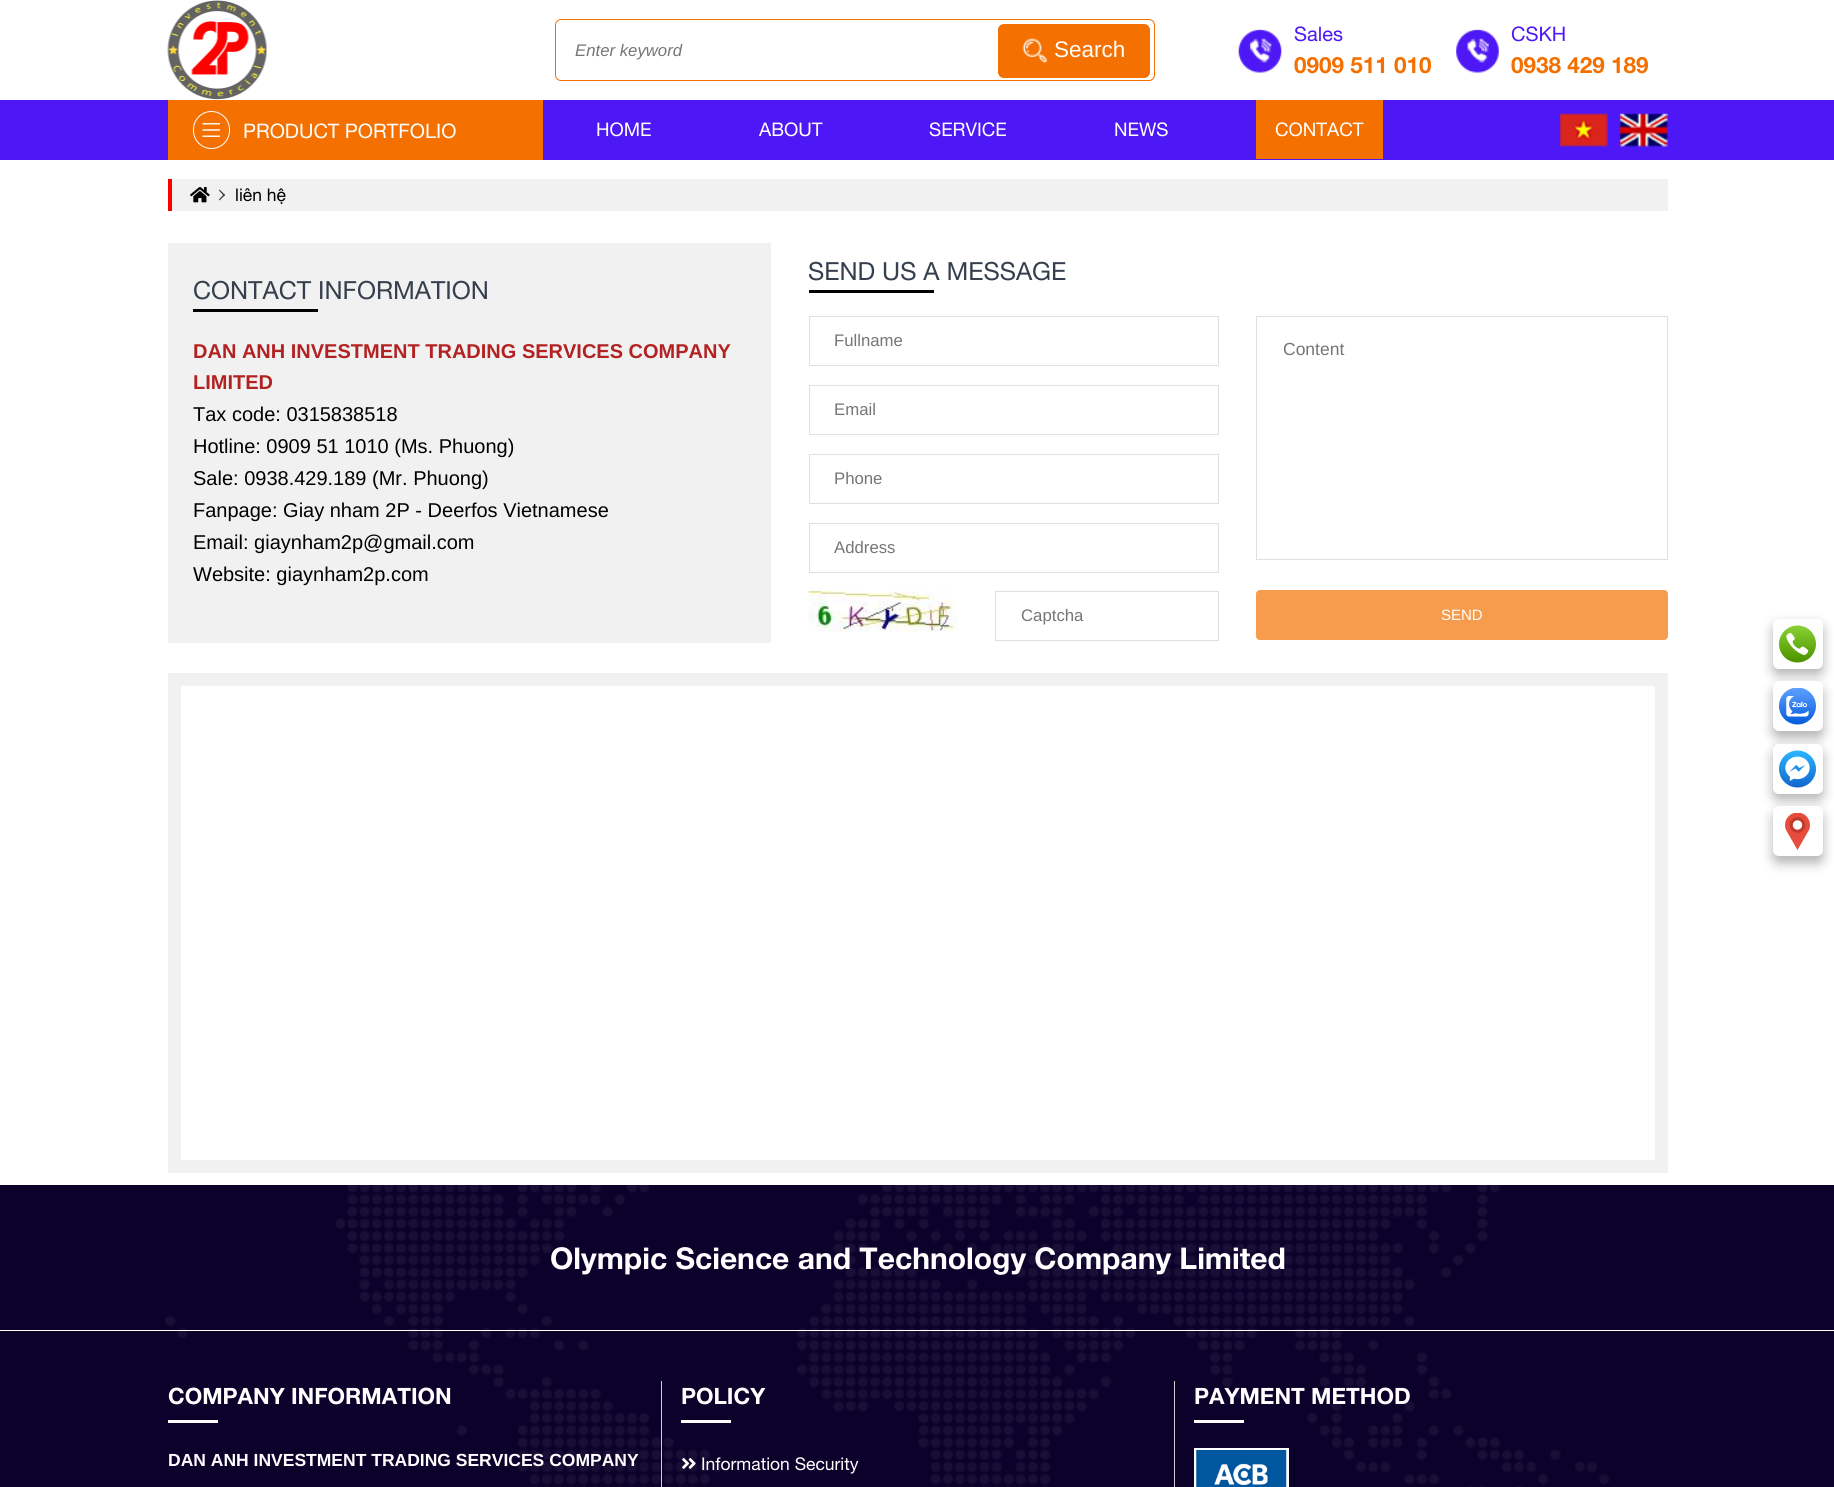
#include <cairo.h>
#include <math.h>
#include <stddef.h>

static cairo_t *ctx;

static void use_color(int r, int g, int b) {
    cairo_set_source_rgb(ctx, r / 255.0, g / 255.0, b / 255.0);
}

static void round_rect(double x, double y, double w, double h, double r) {
    cairo_new_sub_path(ctx);
    cairo_arc(ctx, x + w - r, y + h - r, r, 0, M_PI / 2);
    cairo_arc(ctx, x + r, y + h - r, r, M_PI / 2, M_PI);
    cairo_arc(ctx, x + r, y + r, r, M_PI, 1.5 * M_PI);
    cairo_arc(ctx, x + w - r, y + r, r, 1.5 * M_PI, 2 * M_PI);
    cairo_close_path(ctx);
}

static void shadow(double x, double y, double w, double h, double r, double blur, double alpha) {
    cairo_push_group_with_content(ctx, CAIRO_CONTENT_ALPHA);
    cairo_set_operator(ctx, CAIRO_OPERATOR_SOURCE);
    for (int i = 15; i >= -15 && fmin(w, h) + blur * i / 3 > 0; i -= 2) {
        double e = blur * i / 6;
        cairo_set_source_rgba(ctx, 0, 0, 0, alpha * erfc((i - 1) / 8.5) / 2);
        round_rect(x - e, y - e, w + 2 * e, h + 2 * e, fmax(0, fmin(r + e + blur * .6, fmin(w, h) / 2 + e)));
        cairo_fill(ctx);
    }
    cairo_pattern_t *soft = cairo_pop_group(ctx);
    cairo_mask(ctx, soft);
    cairo_pattern_destroy(soft);
}

static void picture(const char *path, double x, double y, double w, double h) {
    cairo_surface_t *image = cairo_image_surface_create_from_png(path);
    cairo_save(ctx);
    cairo_set_source_surface(ctx, image, x, y);
    cairo_rectangle(ctx, x, y, w, h);
    cairo_fill(ctx);
    cairo_restore(ctx);
    cairo_surface_destroy(image);
}

int main(void) {
    cairo_surface_t *surface = cairo_image_surface_create(CAIRO_FORMAT_RGB24, 1834, 1487);
    ctx = cairo_create(surface);
    cairo_font_options_t *options = cairo_font_options_create();
    cairo_font_options_set_hint_metrics(options, CAIRO_HINT_METRICS_OFF);
    cairo_font_options_set_hint_style(options, CAIRO_HINT_STYLE_NONE);
    cairo_set_font_options(ctx, options);
    cairo_set_miter_limit(ctx, 4);
    use_color(255, 255, 255);
    cairo_paint(ctx);
    picture("img1.png", 167, 0, 100, 100);
    round_rect(555.5, 19.5, 599, 61, 5.5);
    use_color(244, 112, 0);
    cairo_set_line_width(ctx, 1);
    cairo_stroke(ctx);
    cairo_select_font_face(ctx, "Liberation Sans", CAIRO_FONT_SLANT_ITALIC, CAIRO_FONT_WEIGHT_NORMAL);
    cairo_set_font_size(ctx, 16.75);
    use_color(117, 117, 117);
    cairo_move_to(ctx, 575, 56);
    cairo_show_text(ctx, "Enter keyword");
    use_color(244, 112, 0);
    round_rect(998, 24, 152, 54, 6);
    cairo_fill(ctx);
    picture("img2.png", 1022, 38, 26, 26);
    cairo_select_font_face(ctx, "Liberation Sans", CAIRO_FONT_SLANT_NORMAL, CAIRO_FONT_WEIGHT_NORMAL);
    cairo_set_font_size(ctx, 22.5);
    use_color(255, 255, 255);
    cairo_move_to(ctx, 1054, 57);
    cairo_show_text(ctx, "Search");
    picture("img3.png", 1238, 29, 44, 44);
    cairo_select_font_face(ctx, "Helvetica Neue", CAIRO_FONT_SLANT_NORMAL, CAIRO_FONT_WEIGHT_NORMAL);
    cairo_set_font_size(ctx, 20);
    use_color(77, 24, 245);
    cairo_move_to(ctx, 1294, 41);
    cairo_show_text(ctx, "Sales");
    cairo_select_font_face(ctx, "Helvetica Neue", CAIRO_FONT_SLANT_NORMAL, CAIRO_FONT_WEIGHT_BOLD);
    cairo_set_font_size(ctx, 22.5);
    use_color(244, 112, 0);
    cairo_move_to(ctx, 1294, 73);
    cairo_show_text(ctx, "0909 511 010");
    picture("img4.png", 1456, 29, 43, 44);
    cairo_select_font_face(ctx, "Helvetica Neue", CAIRO_FONT_SLANT_NORMAL, CAIRO_FONT_WEIGHT_NORMAL);
    cairo_set_font_size(ctx, 20);
    use_color(77, 24, 245);
    cairo_move_to(ctx, 1511, 41);
    cairo_show_text(ctx, "CSKH");
    cairo_select_font_face(ctx, "Helvetica Neue", CAIRO_FONT_SLANT_NORMAL, CAIRO_FONT_WEIGHT_BOLD);
    cairo_set_font_size(ctx, 22.5);
    use_color(244, 112, 0);
    cairo_move_to(ctx, 1511, 73);
    cairo_show_text(ctx, "0938 429 189");
    use_color(77, 24, 245);
    cairo_rectangle(ctx, 0, 100, 1834, 60);
    cairo_fill(ctx);
    use_color(244, 112, 0);
    cairo_rectangle(ctx, 168, 100, 375, 60);
    cairo_fill(ctx);
    round_rect(193.5, 111.5, 36, 37, 18);
    use_color(255, 255, 255);
    cairo_stroke(ctx);
    picture("img5.png", 202, 123, 18, 14);
    cairo_select_font_face(ctx, "Helvetica Neue", CAIRO_FONT_SLANT_NORMAL, CAIRO_FONT_WEIGHT_NORMAL);
    cairo_set_font_size(ctx, 20);
    cairo_move_to(ctx, 243, 138);
    cairo_show_text(ctx, "PRODUCT PORTFOLIO");
    cairo_set_font_size(ctx, 18.75);
    cairo_move_to(ctx, 596, 136);
    cairo_show_text(ctx, "HOME");
    cairo_move_to(ctx, 759, 136);
    cairo_show_text(ctx, "ABOUT");
    cairo_move_to(ctx, 929, 136);
    cairo_show_text(ctx, "SERVICE");
    cairo_move_to(ctx, 1114, 136);
    cairo_show_text(ctx, "NEWS");
    use_color(244, 112, 0);
    cairo_rectangle(ctx, 1256, 100, 127, 59);
    cairo_fill(ctx);
    use_color(255, 255, 255);
    cairo_move_to(ctx, 1275, 136);
    cairo_show_text(ctx, "CONTACT");
    picture("img6.png", 1560, 113, 48, 34);
    picture("img7.png", 1620, 113, 48, 34);
    use_color(241, 241, 241);
    cairo_rectangle(ctx, 172, 179, 1496, 32);
    cairo_fill(ctx);
    use_color(255, 0, 0);
    cairo_rectangle(ctx, 168, 179, 4, 32);
    cairo_fill(ctx);
    picture("img8.png", 190, 187, 20, 16);
    use_color(51, 51, 51);
    cairo_new_path(ctx);
    cairo_move_to(ctx, 219.5, 189.5);
    cairo_line_to(ctx, 225, 195);
    cairo_line_to(ctx, 224, 196);
    cairo_line_to(ctx, 219, 190.5);
    cairo_close_path(ctx);
    cairo_fill(ctx);
    cairo_new_path(ctx);
    cairo_move_to(ctx, 224, 194);
    cairo_line_to(ctx, 225, 195);
    cairo_line_to(ctx, 219.5, 200.5);
    cairo_line_to(ctx, 219, 199.5);
    cairo_close_path(ctx);
    cairo_fill(ctx);
    cairo_set_font_size(ctx, 17.5);
    use_color(0, 0, 0);
    cairo_move_to(ctx, 235, 201);
    cairo_show_text(ctx, "liên hệ");
    use_color(241, 241, 241);
    cairo_rectangle(ctx, 168, 243, 603, 400);
    cairo_fill(ctx);
    cairo_set_font_size(ctx, 25);
    use_color(54, 63, 77);
    cairo_move_to(ctx, 193, 299);
    cairo_show_text(ctx, "CONTACT INFORMATION");
    use_color(0, 0, 0);
    cairo_rectangle(ctx, 193, 309, 125, 3);
    cairo_fill(ctx);
    cairo_select_font_face(ctx, "Liberation Sans", CAIRO_FONT_SLANT_NORMAL, CAIRO_FONT_WEIGHT_BOLD);
    cairo_set_font_size(ctx, 20);
    use_color(178, 34, 34);
    cairo_move_to(ctx, 193, 358);
    cairo_show_text(ctx, "DAN ANH INVESTMENT TRADING SERVICES COMPANY");
    cairo_move_to(ctx, 193, 389);
    cairo_show_text(ctx, "LIMITED");
    cairo_select_font_face(ctx, "Liberation Sans", CAIRO_FONT_SLANT_NORMAL, CAIRO_FONT_WEIGHT_NORMAL);
    use_color(0, 0, 0);
    cairo_move_to(ctx, 193, 421);
    cairo_show_text(ctx, "Tax code: 0315838518");
    cairo_move_to(ctx, 193, 453);
    cairo_show_text(ctx, "Hotline: 0909 51 1010 (Ms. Phuong)");
    cairo_move_to(ctx, 193, 485);
    cairo_show_text(ctx, "Sale: 0938.429.189 (Mr. Phuong)");
    cairo_move_to(ctx, 193, 517);
    cairo_show_text(ctx, "Fanpage: Giay nham 2P - Deerfos Vietnamese");
    cairo_move_to(ctx, 193, 549);
    cairo_show_text(ctx, "Email: giaynham2p@gmail.com");
    cairo_move_to(ctx, 193, 581);
    cairo_show_text(ctx, "Website: giaynham2p.com");
    cairo_select_font_face(ctx, "Helvetica Neue", CAIRO_FONT_SLANT_NORMAL, CAIRO_FONT_WEIGHT_NORMAL);
    cairo_set_font_size(ctx, 25);
    use_color(54, 63, 77);
    cairo_move_to(ctx, 808, 280);
    cairo_show_text(ctx, "SEND US A MESSAGE");
    use_color(0, 0, 0);
    cairo_rectangle(ctx, 809, 290, 125, 3);
    cairo_fill(ctx);
    cairo_rectangle(ctx, 809.5, 316.5, 409, 49);
    use_color(224, 224, 224);
    cairo_stroke(ctx);
    cairo_select_font_face(ctx, "Liberation Sans", CAIRO_FONT_SLANT_NORMAL, CAIRO_FONT_WEIGHT_NORMAL);
    cairo_set_font_size(ctx, 16.75);
    use_color(117, 117, 117);
    cairo_move_to(ctx, 834, 346);
    cairo_show_text(ctx, "Fullname");
    cairo_rectangle(ctx, 809.5, 385.5, 409, 49);
    use_color(224, 224, 224);
    cairo_stroke(ctx);
    use_color(117, 117, 117);
    cairo_move_to(ctx, 834, 415);
    cairo_show_text(ctx, "Email");
    cairo_rectangle(ctx, 809.5, 454.5, 409, 49);
    use_color(224, 224, 224);
    cairo_stroke(ctx);
    use_color(117, 117, 117);
    cairo_move_to(ctx, 834, 484);
    cairo_show_text(ctx, "Phone");
    cairo_rectangle(ctx, 809.5, 523.5, 409, 49);
    use_color(224, 224, 224);
    cairo_stroke(ctx);
    use_color(117, 117, 117);
    cairo_move_to(ctx, 834, 553);
    cairo_show_text(ctx, "Address");
    picture("img9.png", 808, 591, 150, 42);
    cairo_rectangle(ctx, 995.5, 591.5, 223, 49);
    use_color(224, 224, 224);
    cairo_stroke(ctx);
    use_color(117, 117, 117);
    cairo_move_to(ctx, 1021, 621);
    cairo_show_text(ctx, "Captcha");
    cairo_rectangle(ctx, 1256.5, 316.5, 411, 243);
    use_color(224, 224, 224);
    cairo_stroke(ctx);
    cairo_set_font_size(ctx, 17.5);
    use_color(117, 117, 117);
    cairo_move_to(ctx, 1283, 355);
    cairo_show_text(ctx, "Content");
    use_color(247, 155, 77);
    round_rect(1256.5, 590.5, 411, 49, 3.5);
    cairo_fill_preserve(ctx);
    cairo_stroke(ctx);
    cairo_set_font_size(ctx, 15);
    use_color(255, 255, 255);
    cairo_move_to(ctx, 1441, 620);
    cairo_show_text(ctx, "SEND");
    cairo_rectangle(ctx, 174.5, 679.5, 1487, 487);
    use_color(241, 241, 241);
    cairo_set_line_width(ctx, 13);
    cairo_stroke(ctx);
    use_color(0, 0, 0);
    shadow(1773, 625, 50, 50, 6, 6, 0.3);
    use_color(255, 255, 255);
    round_rect(1773, 619, 50, 50, 6);
    cairo_fill(ctx);
    picture("img10.png", 1779, 625, 37, 38);
    use_color(0, 0, 0);
    shadow(1773, 688, 50, 50, 6, 6, 0.3);
    use_color(255, 255, 255);
    round_rect(1773, 681, 50, 50, 6);
    cairo_fill(ctx);
    picture("img11.png", 1779, 688, 37, 37);
    use_color(0, 0, 0);
    shadow(1773, 750, 50, 50, 6, 6, 0.3);
    use_color(255, 255, 255);
    round_rect(1773, 744, 50, 50, 6);
    cairo_fill(ctx);
    picture("img12.png", 1779, 750, 37, 38);
    use_color(0, 0, 0);
    shadow(1773, 813, 50, 50, 6, 6, 0.3);
    use_color(255, 255, 255);
    round_rect(1773, 806, 50, 50, 6);
    cairo_fill(ctx);
    picture("img13.png", 1785, 813, 25, 37);
    picture("img14.png", 0, 1185, 1834, 302);
    cairo_rectangle(ctx, 0, 1330, 1834, 1);
    cairo_fill(ctx);
    cairo_select_font_face(ctx, "Helvetica Neue", CAIRO_FONT_SLANT_NORMAL, CAIRO_FONT_WEIGHT_BOLD);
    cairo_set_font_size(ctx, 30);
    cairo_move_to(ctx, 550, 1269);
    cairo_show_text(ctx, "Olympic Science and Technology Company Limited");
    cairo_set_font_size(ctx, 22.5);
    cairo_move_to(ctx, 168, 1404);
    cairo_show_text(ctx, "COMPANY INFORMATION");
    cairo_rectangle(ctx, 168, 1420, 50, 3);
    cairo_fill(ctx);
    cairo_select_font_face(ctx, "Liberation Sans", CAIRO_FONT_SLANT_NORMAL, CAIRO_FONT_WEIGHT_BOLD);
    cairo_set_font_size(ctx, 17.5);
    cairo_move_to(ctx, 168, 1466);
    cairo_show_text(ctx, "DAN ANH INVESTMENT TRADING SERVICES COMPANY");
    use_color(209, 209, 209);
    cairo_rectangle(ctx, 661, 1381, 1, 106);
    cairo_fill(ctx);
    cairo_select_font_face(ctx, "Helvetica Neue", CAIRO_FONT_SLANT_NORMAL, CAIRO_FONT_WEIGHT_BOLD);
    cairo_set_font_size(ctx, 22.5);
    use_color(255, 255, 255);
    cairo_move_to(ctx, 681, 1404);
    cairo_show_text(ctx, "POLICY");
    cairo_rectangle(ctx, 681, 1420, 50, 3);
    cairo_fill(ctx);
    picture("img15.png", 682, 1458, 14, 11);
    cairo_select_font_face(ctx, "Helvetica Neue", CAIRO_FONT_SLANT_NORMAL, CAIRO_FONT_WEIGHT_NORMAL);
    cairo_set_font_size(ctx, 17.5);
    cairo_move_to(ctx, 701, 1470);
    cairo_show_text(ctx, "Information Security");
    use_color(209, 209, 209);
    cairo_rectangle(ctx, 1174, 1381, 1, 106);
    cairo_fill(ctx);
    cairo_select_font_face(ctx, "Helvetica Neue", CAIRO_FONT_SLANT_NORMAL, CAIRO_FONT_WEIGHT_BOLD);
    cairo_set_font_size(ctx, 22.5);
    use_color(255, 255, 255);
    cairo_move_to(ctx, 1194, 1404);
    cairo_show_text(ctx, "PAYMENT METHOD");
    cairo_rectangle(ctx, 1194, 1420, 50, 3);
    cairo_fill(ctx);
    cairo_rectangle(ctx, 1194, 1448, 95, 39);
    cairo_fill(ctx);
    picture("img16.png", 1196, 1450, 91, 37);
    cairo_surface_write_to_png(surface, "result.png");
    cairo_font_options_destroy(options);
    cairo_destroy(ctx);
    cairo_surface_destroy(surface);
    return 0;
}
